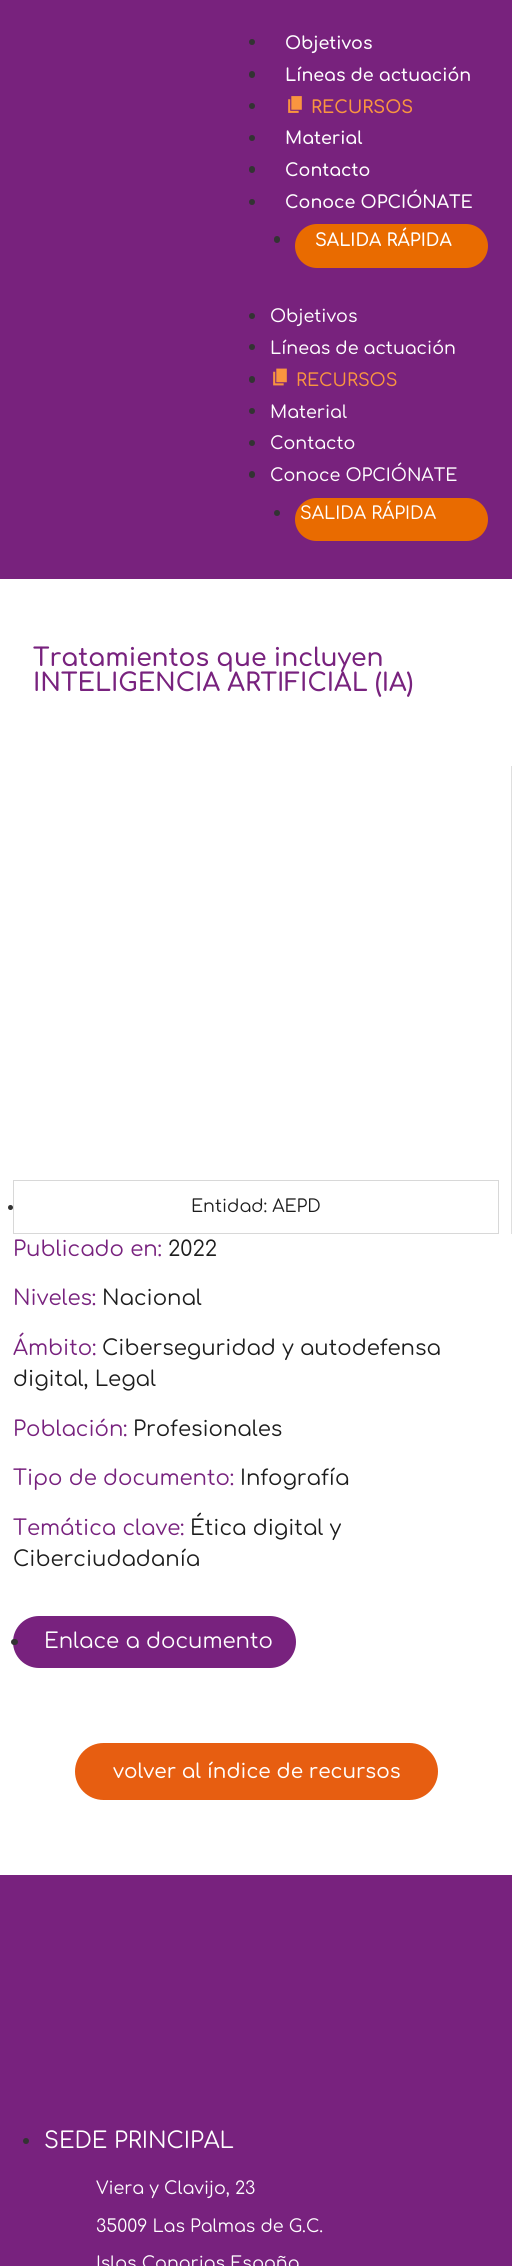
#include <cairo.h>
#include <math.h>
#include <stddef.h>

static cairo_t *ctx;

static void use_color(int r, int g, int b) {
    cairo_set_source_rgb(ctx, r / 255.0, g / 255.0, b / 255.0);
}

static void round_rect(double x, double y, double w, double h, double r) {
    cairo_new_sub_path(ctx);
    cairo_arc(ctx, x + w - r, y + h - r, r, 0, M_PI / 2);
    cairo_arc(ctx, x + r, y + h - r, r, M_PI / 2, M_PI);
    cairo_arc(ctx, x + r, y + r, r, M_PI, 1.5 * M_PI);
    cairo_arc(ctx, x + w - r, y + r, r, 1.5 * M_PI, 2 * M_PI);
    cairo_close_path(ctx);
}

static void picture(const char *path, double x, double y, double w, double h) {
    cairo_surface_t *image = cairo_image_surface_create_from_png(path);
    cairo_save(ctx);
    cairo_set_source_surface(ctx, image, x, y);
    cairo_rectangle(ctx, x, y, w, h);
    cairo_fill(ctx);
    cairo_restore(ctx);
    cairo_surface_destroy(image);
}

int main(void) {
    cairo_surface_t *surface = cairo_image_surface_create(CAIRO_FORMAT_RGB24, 512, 2266);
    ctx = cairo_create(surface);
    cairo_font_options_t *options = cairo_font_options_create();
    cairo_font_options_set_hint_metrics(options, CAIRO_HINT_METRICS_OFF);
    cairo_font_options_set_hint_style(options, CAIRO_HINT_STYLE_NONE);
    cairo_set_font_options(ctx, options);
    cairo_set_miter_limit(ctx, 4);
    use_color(255, 255, 255);
    cairo_paint(ctx);
    use_color(120, 34, 125);
    cairo_rectangle(ctx, 0, 0, 512, 579);
    cairo_fill(ctx);
    use_color(51, 51, 51);
    cairo_arc(ctx, 252, 42, 3, 0, 2 * M_PI);
    cairo_fill(ctx);
    cairo_select_font_face(ctx, "Comfortaa SemiBold", CAIRO_FONT_SLANT_NORMAL, CAIRO_FONT_WEIGHT_NORMAL);
    cairo_set_font_size(ctx, 17.5);
    use_color(255, 255, 255);
    cairo_move_to(ctx, 285, 49);
    cairo_show_text(ctx, "Objetivos");
    use_color(51, 51, 51);
    round_rect(249, 71, 6, 7, 3);
    cairo_fill(ctx);
    use_color(255, 255, 255);
    cairo_move_to(ctx, 285, 81);
    cairo_show_text(ctx, "Líneas de actuación");
    use_color(51, 51, 51);
    cairo_new_path(ctx);
    cairo_arc(ctx, 252, 106, 3, 0, 2 * M_PI);
    cairo_fill(ctx);
    picture("img1.png", 288, 96, 14, 17);
    use_color(250, 149, 63);
    cairo_move_to(ctx, 311, 113);
    cairo_show_text(ctx, "RECURSOS");
    use_color(51, 51, 51);
    cairo_new_path(ctx);
    cairo_arc(ctx, 252, 138, 3, 0, 2 * M_PI);
    cairo_fill(ctx);
    use_color(255, 255, 255);
    cairo_move_to(ctx, 285, 144);
    cairo_show_text(ctx, "Material");
    use_color(51, 51, 51);
    round_rect(249, 166, 6, 7, 3);
    cairo_fill(ctx);
    use_color(255, 255, 255);
    cairo_move_to(ctx, 285, 176);
    cairo_show_text(ctx, "Contacto");
    use_color(51, 51, 51);
    cairo_new_path(ctx);
    cairo_arc(ctx, 252, 202, 3, 0, 2 * M_PI);
    cairo_fill(ctx);
    use_color(255, 255, 255);
    cairo_move_to(ctx, 285, 208);
    cairo_show_text(ctx, "Conoce OPCIÓNATE");
    use_color(233, 107, 0);
    round_rect(295, 224, 193, 44, 22);
    cairo_fill(ctx);
    use_color(51, 51, 51);
    round_rect(274, 236, 6, 7, 3);
    cairo_fill(ctx);
    use_color(255, 255, 255);
    cairo_move_to(ctx, 315, 246);
    cairo_show_text(ctx, "SALIDA RÁPIDA");
    use_color(51, 51, 51);
    cairo_new_path(ctx);
    cairo_arc(ctx, 252, 316, 3, 0, 2 * M_PI);
    cairo_fill(ctx);
    cairo_select_font_face(ctx, "Comfortaa Medium", CAIRO_FONT_SLANT_NORMAL, CAIRO_FONT_WEIGHT_NORMAL);
    use_color(255, 255, 255);
    cairo_move_to(ctx, 270, 322);
    cairo_show_text(ctx, "Objetivos");
    use_color(51, 51, 51);
    cairo_new_path(ctx);
    cairo_arc(ctx, 252, 347, 3, 0, 2 * M_PI);
    cairo_fill(ctx);
    use_color(255, 255, 255);
    cairo_move_to(ctx, 270, 354);
    cairo_show_text(ctx, "Líneas de actuación");
    use_color(51, 51, 51);
    round_rect(249, 376, 6, 7, 3);
    cairo_fill(ctx);
    picture("img2.png", 273, 368, 14, 18);
    use_color(250, 149, 63);
    cairo_move_to(ctx, 296, 386);
    cairo_show_text(ctx, "RECURSOS");
    use_color(51, 51, 51);
    cairo_new_path(ctx);
    cairo_arc(ctx, 252, 411, 3, 0, 2 * M_PI);
    cairo_fill(ctx);
    use_color(255, 255, 255);
    cairo_move_to(ctx, 270, 418);
    cairo_show_text(ctx, "Material");
    use_color(51, 51, 51);
    cairo_new_path(ctx);
    cairo_arc(ctx, 252, 443, 3, 0, 2 * M_PI);
    cairo_fill(ctx);
    use_color(255, 255, 255);
    cairo_move_to(ctx, 270, 449);
    cairo_show_text(ctx, "Contacto");
    use_color(51, 51, 51);
    round_rect(249, 471, 6, 7, 3);
    cairo_fill(ctx);
    use_color(255, 255, 255);
    cairo_move_to(ctx, 270, 481);
    cairo_show_text(ctx, "Conoce OPCIÓNATE");
    use_color(233, 107, 0);
    round_rect(295, 498, 193, 43, 21.5);
    cairo_fill(ctx);
    use_color(51, 51, 51);
    cairo_arc(ctx, 277, 513, 3, 0, 2 * M_PI);
    cairo_fill(ctx);
    use_color(255, 255, 255);
    cairo_move_to(ctx, 300, 519);
    cairo_show_text(ctx, "SALIDA RÁPIDA");
    cairo_select_font_face(ctx, "Comfortaa SemiBold", CAIRO_FONT_SLANT_NORMAL, CAIRO_FONT_WEIGHT_NORMAL);
    cairo_set_font_size(ctx, 25);
    use_color(120, 34, 126);
    cairo_move_to(ctx, 33, 666);
    cairo_show_text(ctx, "Tratamientos que incluyen");
    cairo_move_to(ctx, 33, 691);
    cairo_show_text(ctx, "INTELIGENCIA ARTIFICIAL (IA)");
    use_color(223, 223, 223);
    cairo_rectangle(ctx, 511, 766, 1, 468);
    cairo_fill(ctx);
    cairo_rectangle(ctx, 13.5, 1180.5, 485, 53);
    use_color(216, 216, 216);
    cairo_set_line_width(ctx, 1);
    cairo_stroke(ctx);
    use_color(51, 51, 51);
    cairo_arc(ctx, 10.5, 1207.5, 2.5, 0, 2 * M_PI);
    cairo_fill(ctx);
    cairo_select_font_face(ctx, "Comfortaa", CAIRO_FONT_SLANT_NORMAL, CAIRO_FONT_WEIGHT_NORMAL);
    cairo_set_font_size(ctx, 17.5);
    use_color(29, 29, 29);
    cairo_move_to(ctx, 191, 1212);
    cairo_show_text(ctx, "Entidad: AEPD");
    cairo_set_font_size(ctx, 21.25);
    use_color(120, 34, 126);
    cairo_move_to(ctx, 13, 1256);
    cairo_show_text(ctx, "Publicado en:");
    use_color(29, 29, 29);
    cairo_move_to(ctx, 168, 1256);
    cairo_show_text(ctx, "2022");
    use_color(120, 34, 126);
    cairo_move_to(ctx, 13, 1305);
    cairo_show_text(ctx, "Niveles:");
    use_color(29, 29, 29);
    cairo_move_to(ctx, 102, 1305);
    cairo_show_text(ctx, "Nacional");
    use_color(120, 34, 126);
    cairo_move_to(ctx, 13, 1355);
    cairo_show_text(ctx, "Ámbito:");
    use_color(29, 29, 29);
    cairo_move_to(ctx, 102, 1355);
    cairo_show_text(ctx, "Ciberseguridad y autodefensa");
    cairo_move_to(ctx, 13, 1386);
    cairo_show_text(ctx, "digital, Legal");
    use_color(120, 34, 126);
    cairo_move_to(ctx, 13, 1436);
    cairo_show_text(ctx, "Población:");
    use_color(29, 29, 29);
    cairo_move_to(ctx, 133, 1436);
    cairo_show_text(ctx, "Profesionales");
    use_color(120, 34, 126);
    cairo_move_to(ctx, 13, 1485);
    cairo_show_text(ctx, "Tipo de documento:");
    use_color(29, 29, 29);
    cairo_move_to(ctx, 240, 1485);
    cairo_show_text(ctx, "Infografía");
    use_color(120, 34, 126);
    cairo_move_to(ctx, 13, 1535);
    cairo_show_text(ctx, "Temática clave:");
    use_color(29, 29, 29);
    cairo_move_to(ctx, 190, 1535);
    cairo_show_text(ctx, "Ética digital y");
    cairo_move_to(ctx, 13, 1566);
    cairo_show_text(ctx, "Ciberciudadanía");
    use_color(120, 34, 126);
    round_rect(13, 1616, 283, 52, 26);
    cairo_fill(ctx);
    use_color(51, 51, 51);
    round_rect(11, 1639, 7, 6, 3);
    cairo_fill(ctx);
    use_color(255, 255, 255);
    cairo_move_to(ctx, 44, 1648);
    cairo_show_text(ctx, "Enlace a documento");
    use_color(231, 94, 17);
    round_rect(75, 1743, 363, 57, 28.5);
    cairo_fill(ctx);
    cairo_select_font_face(ctx, "Comfortaa Medium", CAIRO_FONT_SLANT_NORMAL, CAIRO_FONT_WEIGHT_NORMAL);
    cairo_set_font_size(ctx, 20);
    use_color(255, 255, 255);
    cairo_move_to(ctx, 113, 1778);
    cairo_show_text(ctx, "volver al índice de recursos");
    use_color(120, 34, 126);
    cairo_rectangle(ctx, 0, 1875, 512, 391);
    cairo_fill(ctx);
    use_color(51, 51, 51);
    cairo_arc(ctx, 26, 2141, 3, 0, 2 * M_PI);
    cairo_fill(ctx);
    cairo_select_font_face(ctx, "Comfortaa", CAIRO_FONT_SLANT_NORMAL, CAIRO_FONT_WEIGHT_NORMAL);
    cairo_set_font_size(ctx, 22.5);
    use_color(255, 255, 255);
    cairo_move_to(ctx, 44, 2148);
    cairo_show_text(ctx, "SEDE PRINCIPAL");
    cairo_set_font_size(ctx, 17.5);
    cairo_move_to(ctx, 96, 2194);
    cairo_show_text(ctx, "Viera y Clavijo, 23");
    cairo_move_to(ctx, 96, 2232);
    cairo_show_text(ctx, "35009 Las Palmas de G.C.");
    cairo_move_to(ctx, 96, 2269);
    cairo_show_text(ctx, "Islas Canarias España");
    cairo_surface_write_to_png(surface, "result.png");
    cairo_font_options_destroy(options);
    cairo_destroy(ctx);
    cairo_surface_destroy(surface);
    return 0;
}
